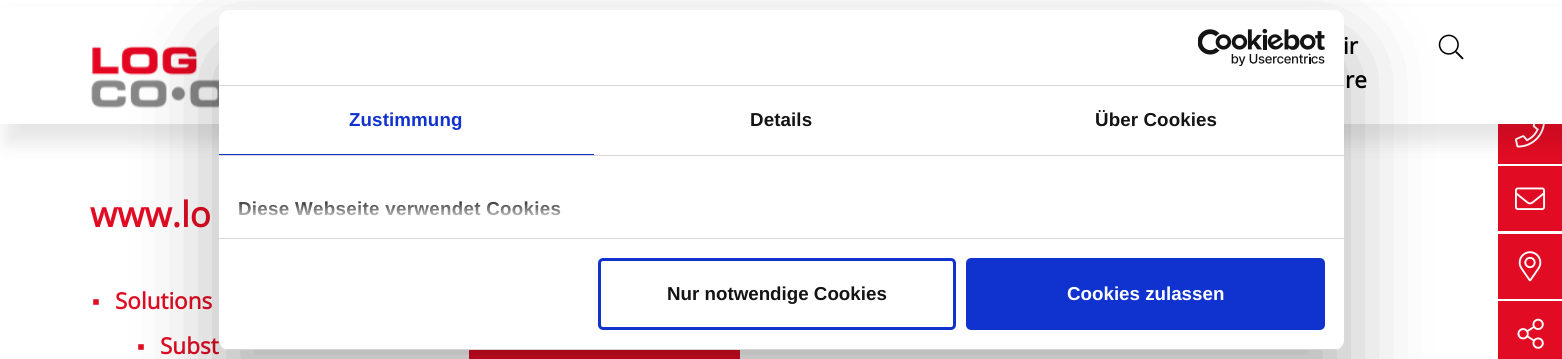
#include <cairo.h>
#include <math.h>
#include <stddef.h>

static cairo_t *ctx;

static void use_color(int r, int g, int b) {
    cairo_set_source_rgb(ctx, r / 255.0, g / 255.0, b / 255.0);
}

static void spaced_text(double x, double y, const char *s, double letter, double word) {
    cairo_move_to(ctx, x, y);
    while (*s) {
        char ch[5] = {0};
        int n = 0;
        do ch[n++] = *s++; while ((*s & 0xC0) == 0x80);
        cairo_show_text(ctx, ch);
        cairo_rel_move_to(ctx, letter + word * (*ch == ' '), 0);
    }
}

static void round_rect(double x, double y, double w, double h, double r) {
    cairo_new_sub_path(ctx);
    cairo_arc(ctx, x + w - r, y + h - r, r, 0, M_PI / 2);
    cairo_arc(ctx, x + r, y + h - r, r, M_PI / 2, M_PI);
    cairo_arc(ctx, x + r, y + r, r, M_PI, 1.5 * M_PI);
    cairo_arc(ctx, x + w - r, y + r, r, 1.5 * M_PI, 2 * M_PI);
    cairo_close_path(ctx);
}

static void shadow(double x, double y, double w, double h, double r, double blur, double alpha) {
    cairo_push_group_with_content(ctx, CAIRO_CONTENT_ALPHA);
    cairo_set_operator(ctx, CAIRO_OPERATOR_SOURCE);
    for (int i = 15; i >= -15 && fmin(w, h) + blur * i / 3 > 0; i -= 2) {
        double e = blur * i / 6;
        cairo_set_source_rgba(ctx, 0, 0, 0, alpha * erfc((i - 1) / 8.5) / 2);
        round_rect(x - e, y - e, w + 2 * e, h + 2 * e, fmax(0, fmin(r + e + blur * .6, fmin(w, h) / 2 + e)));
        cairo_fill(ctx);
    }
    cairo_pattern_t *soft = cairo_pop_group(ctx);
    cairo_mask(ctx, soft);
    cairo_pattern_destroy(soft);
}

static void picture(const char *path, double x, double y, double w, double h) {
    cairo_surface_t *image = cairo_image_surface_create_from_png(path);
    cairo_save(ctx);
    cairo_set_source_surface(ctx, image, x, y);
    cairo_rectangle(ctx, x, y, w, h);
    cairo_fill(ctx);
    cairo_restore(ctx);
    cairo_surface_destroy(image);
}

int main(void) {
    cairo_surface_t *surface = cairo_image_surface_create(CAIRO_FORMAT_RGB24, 1562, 359);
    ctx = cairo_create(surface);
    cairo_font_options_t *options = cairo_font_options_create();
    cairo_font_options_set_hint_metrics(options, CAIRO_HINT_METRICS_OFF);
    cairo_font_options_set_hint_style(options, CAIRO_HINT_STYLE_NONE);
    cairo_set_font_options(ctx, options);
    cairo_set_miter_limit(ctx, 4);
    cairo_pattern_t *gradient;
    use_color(255, 255, 255);
    cairo_paint(ctx);
    use_color(225, 12, 35);
    cairo_rectangle(ctx, 1498, 124, 64, 40);
    cairo_fill(ctx);
    picture("img3.png", 1515, 124, 30, 24);
    cairo_rectangle(ctx, 1498, 166, 64, 65);
    cairo_fill(ctx);
    use_color(0, 0, 0);
    shadow(6, 19, 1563, 124, 0, 9.5, 0.1);
    use_color(255, 255, 255);
    cairo_rectangle(ctx, 0, 7, 1562, 117);
    cairo_fill(ctx);
    picture("img1.png", 91, 46, 128, 63);
    cairo_select_font_face(ctx, "Open Sans", CAIRO_FONT_SLANT_NORMAL, CAIRO_FONT_WEIGHT_BOLD);
    cairo_set_font_size(ctx, 22.5);
    use_color(0, 0, 0);
    cairo_move_to(ctx, 1343, 54);
    cairo_show_text(ctx, "ir");
    cairo_move_to(ctx, 1345, 88);
    cairo_show_text(ctx, "re");
    picture("img2.png", 1438, 34, 26, 26);
    cairo_set_font_size(ctx, 35);
    use_color(225, 12, 35);
    cairo_move_to(ctx, 90, 227);
    cairo_show_text(ctx, "www.lo");
    cairo_select_font_face(ctx, "Liberation Sans", CAIRO_FONT_SLANT_NORMAL, CAIRO_FONT_WEIGHT_NORMAL);
    cairo_set_font_size(ctx, 22.5);
    cairo_move_to(ctx, 92, 309);
    cairo_show_text(ctx, "▪");
    cairo_select_font_face(ctx, "Open Sans", CAIRO_FONT_SLANT_NORMAL, CAIRO_FONT_WEIGHT_BOLD);
    cairo_move_to(ctx, 115, 309);
    cairo_show_text(ctx, "Solutions");
    cairo_select_font_face(ctx, "Liberation Sans", CAIRO_FONT_SLANT_NORMAL, CAIRO_FONT_WEIGHT_NORMAL);
    cairo_move_to(ctx, 137, 354);
    cairo_show_text(ctx, "▪");
    cairo_select_font_face(ctx, "Open Sans", CAIRO_FONT_SLANT_NORMAL, CAIRO_FONT_WEIGHT_BOLD);
    cairo_move_to(ctx, 160, 354);
    cairo_show_text(ctx, "Subst");
    picture("img4.png", 1515, 187, 30, 23);
    cairo_rectangle(ctx, 1498, 234, 64, 65);
    cairo_fill(ctx);
    picture("img5.png", 1518, 251, 24, 31);
    cairo_rectangle(ctx, 1498, 301, 64, 58);
    cairo_fill(ctx);
    picture("img6.png", 1517, 318, 27, 31);
    cairo_rectangle(ctx, 469, 350, 271, 9);
    cairo_fill(ctx);
    use_color(0, 0, 0);
    shadow(219, 50, 1125, 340, 10, 42.5, 0.3);
    use_color(255, 255, 255);
    round_rect(219, 10, 1125, 340, 10);
    cairo_fill(ctx);
    use_color(214, 214, 214);
    cairo_rectangle(ctx, 219, 85, 1125, 1);
    cairo_fill(ctx);
    picture("img7.png", 1198, 29, 127, 37);
    cairo_rectangle(ctx, 219, 155, 1125, 1);
    cairo_fill(ctx);
    use_color(16, 50, 207);
    cairo_rectangle(ctx, 219, 154, 375, 1);
    cairo_fill(ctx);
    cairo_select_font_face(ctx, "Liberation Sans", CAIRO_FONT_SLANT_NORMAL, CAIRO_FONT_WEIGHT_BOLD);
    cairo_set_font_size(ctx, 18.75);
    spaced_text(349, 126, "Zustimmung", 0.1, 0);
    use_color(20, 20, 20);
    spaced_text(750, 126, "Details", 0.1, 0);
    spaced_text(1095, 126, "Über Cookies", 0.1, 0);
    use_color(214, 214, 214);
    cairo_rectangle(ctx, 219, 238, 1125, 1);
    cairo_fill(ctx);
    use_color(20, 20, 20);
    spaced_text(238, 215, "Diese Webseite verwendet Cookies", 0.3, 0);
    gradient = cairo_pattern_create_linear(773, 238, 773, 198);
    cairo_pattern_add_color_stop_rgba(gradient, 0, 1, 1, 1, 1);
    cairo_pattern_add_color_stop_rgba(gradient, 0.5, 1, 1, 1, 0.8);
    cairo_pattern_add_color_stop_rgba(gradient, 1, 1, 1, 1, 0);
    cairo_set_source(ctx, gradient);
    cairo_pattern_destroy(gradient);
    cairo_rectangle(ctx, 238, 201, 323, 15);
    cairo_fill(ctx);
    cairo_save(ctx);
    round_rect(219, 10, 1125, 340, 10);
    cairo_clip(ctx);
    use_color(214, 214, 214);
    cairo_rectangle(ctx, 219, 349, 1125, 1);
    cairo_fill(ctx);
    cairo_restore(ctx);
    round_rect(599.5, 259.5, 355, 69, 3.5);
    use_color(16, 50, 207);
    cairo_set_line_width(ctx, 3);
    cairo_stroke(ctx);
    use_color(20, 20, 20);
    cairo_move_to(ctx, 667, 300);
    cairo_show_text(ctx, "Nur notwendige Cookies");
    use_color(16, 50, 207);
    round_rect(967.5, 259.5, 356, 69, 3.5);
    cairo_fill_preserve(ctx);
    cairo_stroke(ctx);
    use_color(255, 255, 255);
    cairo_move_to(ctx, 1067, 300);
    cairo_show_text(ctx, "Cookies zulassen");
    cairo_surface_write_to_png(surface, "result.png");
    cairo_font_options_destroy(options);
    cairo_destroy(ctx);
    cairo_surface_destroy(surface);
    return 0;
}
